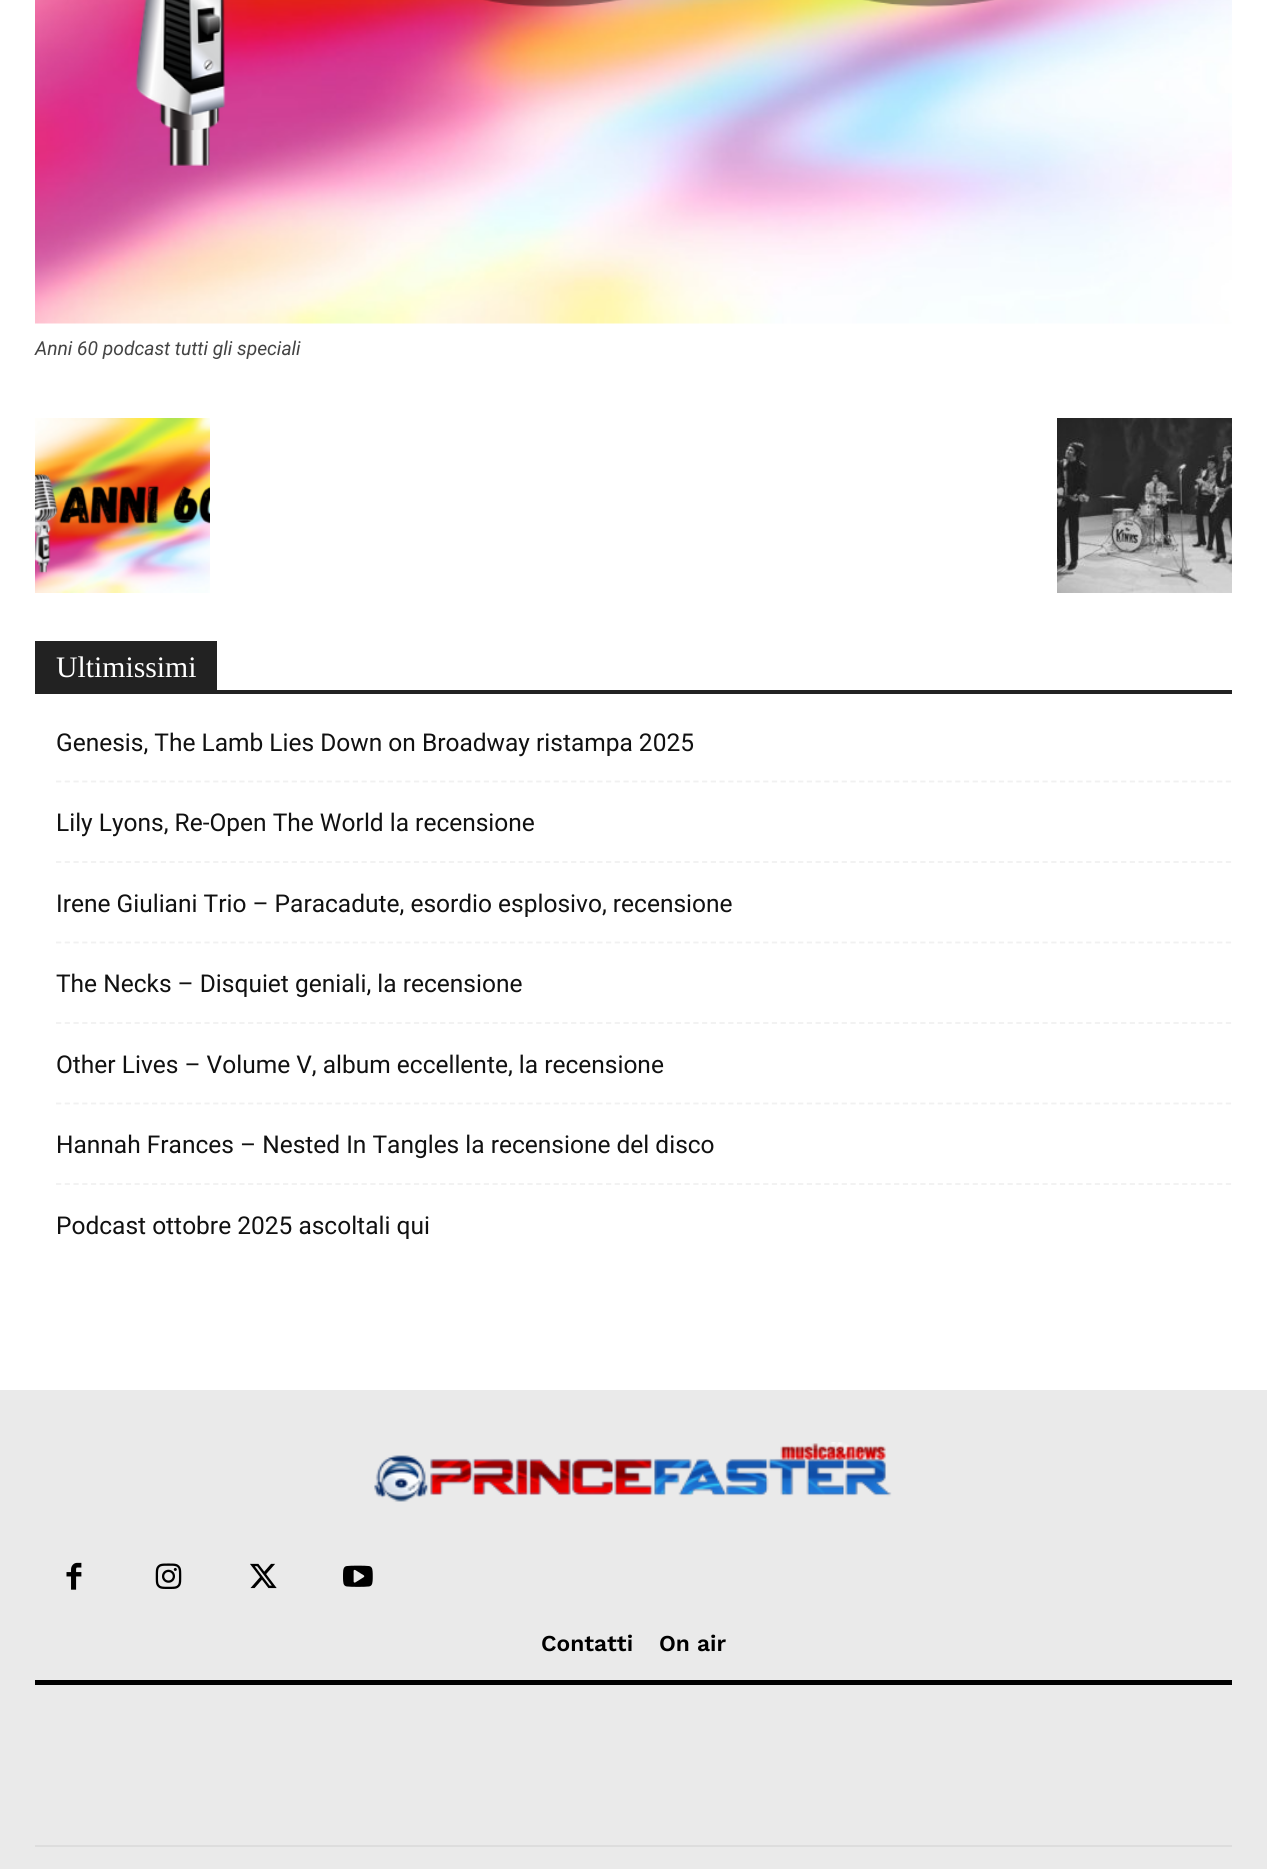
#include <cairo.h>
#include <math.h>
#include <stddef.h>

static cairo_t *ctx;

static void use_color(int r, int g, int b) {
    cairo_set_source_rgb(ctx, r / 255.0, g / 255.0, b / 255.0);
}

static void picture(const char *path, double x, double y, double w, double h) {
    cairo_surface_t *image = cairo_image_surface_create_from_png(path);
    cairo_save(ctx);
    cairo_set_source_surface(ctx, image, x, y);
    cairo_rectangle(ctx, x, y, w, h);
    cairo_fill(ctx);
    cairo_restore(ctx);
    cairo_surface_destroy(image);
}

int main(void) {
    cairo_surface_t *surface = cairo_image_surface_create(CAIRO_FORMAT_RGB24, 1267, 1869);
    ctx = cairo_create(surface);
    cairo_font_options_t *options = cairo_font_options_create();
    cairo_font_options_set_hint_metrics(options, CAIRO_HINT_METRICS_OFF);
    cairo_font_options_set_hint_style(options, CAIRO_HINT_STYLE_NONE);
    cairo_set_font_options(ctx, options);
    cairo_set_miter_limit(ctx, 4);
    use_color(255, 255, 255);
    cairo_paint(ctx);
    picture("img1.png", 35, 0, 1197, 324);
    cairo_select_font_face(ctx, "Roboto", CAIRO_FONT_SLANT_ITALIC, CAIRO_FONT_WEIGHT_NORMAL);
    cairo_set_font_size(ctx, 19.25);
    use_color(68, 68, 68);
    cairo_move_to(ctx, 35, 355);
    cairo_show_text(ctx, "Anni 60 podcast tutti gli speciali");
    picture("img2.png", 35, 418, 175, 175);
    picture("img3.png", 1057, 418, 175, 175);
    use_color(34, 34, 34);
    cairo_rectangle(ctx, 35, 690, 1197, 4);
    cairo_fill(ctx);
    cairo_rectangle(ctx, 35, 641, 182, 49);
    cairo_fill(ctx);
    cairo_select_font_face(ctx, "Liberation Serif", CAIRO_FONT_SLANT_NORMAL, CAIRO_FONT_WEIGHT_NORMAL);
    cairo_set_font_size(ctx, 29.75);
    use_color(255, 255, 255);
    cairo_move_to(ctx, 56, 677);
    cairo_show_text(ctx, "Ultimissimi");
    cairo_new_path(ctx);
    cairo_move_to(ctx, 56, 781.5);
    cairo_line_to(ctx, 1232, 781.5);
    use_color(241, 241, 241);
    cairo_set_line_width(ctx, 1.8);
    cairo_set_dash(ctx, (double[]){5.25, 3.48}, 2, 0);
    cairo_stroke(ctx);
    cairo_select_font_face(ctx, "Roboto", CAIRO_FONT_SLANT_NORMAL, CAIRO_FONT_WEIGHT_NORMAL);
    cairo_set_font_size(ctx, 24.5);
    use_color(17, 17, 17);
    cairo_move_to(ctx, 56, 751);
    cairo_show_text(ctx, "Genesis, The Lamb Lies Down on Broadway ristampa 2025");
    cairo_new_path(ctx);
    cairo_move_to(ctx, 56, 862);
    cairo_line_to(ctx, 1232, 862);
    use_color(241, 241, 241);
    cairo_stroke(ctx);
    use_color(17, 17, 17);
    cairo_move_to(ctx, 56, 831);
    cairo_show_text(ctx, "Lily Lyons, Re-Open The World la recensione");
    cairo_new_path(ctx);
    cairo_move_to(ctx, 56, 942.5);
    cairo_line_to(ctx, 1232, 942.5);
    use_color(241, 241, 241);
    cairo_stroke(ctx);
    use_color(17, 17, 17);
    cairo_move_to(ctx, 56, 912);
    cairo_show_text(ctx, "Irene Giuliani Trio – Paracadute, esordio esplosivo, recensione");
    cairo_new_path(ctx);
    cairo_move_to(ctx, 56, 1023);
    cairo_line_to(ctx, 1232, 1023);
    use_color(241, 241, 241);
    cairo_stroke(ctx);
    use_color(17, 17, 17);
    cairo_move_to(ctx, 56, 992);
    cairo_show_text(ctx, "The Necks – Disquiet geniali, la recensione");
    cairo_new_path(ctx);
    cairo_move_to(ctx, 56, 1103.5);
    cairo_line_to(ctx, 1232, 1103.5);
    use_color(241, 241, 241);
    cairo_stroke(ctx);
    use_color(17, 17, 17);
    cairo_move_to(ctx, 56, 1073);
    cairo_show_text(ctx, "Other Lives – Volume V, album eccellente, la recensione");
    cairo_new_path(ctx);
    cairo_move_to(ctx, 56, 1184);
    cairo_line_to(ctx, 1232, 1184);
    use_color(241, 241, 241);
    cairo_stroke(ctx);
    use_color(17, 17, 17);
    cairo_move_to(ctx, 56, 1153);
    cairo_show_text(ctx, "Hannah Frances – Nested In Tangles la recensione del disco");
    cairo_move_to(ctx, 56, 1234);
    cairo_show_text(ctx, "Podcast ottobre 2025 ascoltali qui");
    use_color(234, 234, 234);
    cairo_rectangle(ctx, 0, 1390, 1267, 479);
    cairo_fill(ctx);
    use_color(0, 0, 0);
    cairo_rectangle(ctx, 35, 1680, 1197, 5);
    cairo_fill(ctx);
    picture("img4.png", 374, 1442, 518, 60);
    picture("img5.png", 66, 1562, 16, 28);
    picture("img6.png", 155, 1563, 27, 26);
    picture("img7.png", 250, 1563, 27, 26);
    picture("img8.png", 343, 1565, 30, 22);
    cairo_select_font_face(ctx, "Work Sans SemiBold", CAIRO_FONT_SLANT_NORMAL, CAIRO_FONT_WEIGHT_NORMAL);
    cairo_set_font_size(ctx, 22.75);
    cairo_move_to(ctx, 541, 1651);
    cairo_show_text(ctx, "Contatti");
    cairo_move_to(ctx, 659, 1651);
    cairo_show_text(ctx, "On air");
    use_color(221, 221, 221);
    cairo_rectangle(ctx, 35, 1845, 1197, 2);
    cairo_fill(ctx);
    cairo_surface_write_to_png(surface, "result.png");
    cairo_font_options_destroy(options);
    cairo_destroy(ctx);
    cairo_surface_destroy(surface);
    return 0;
}
